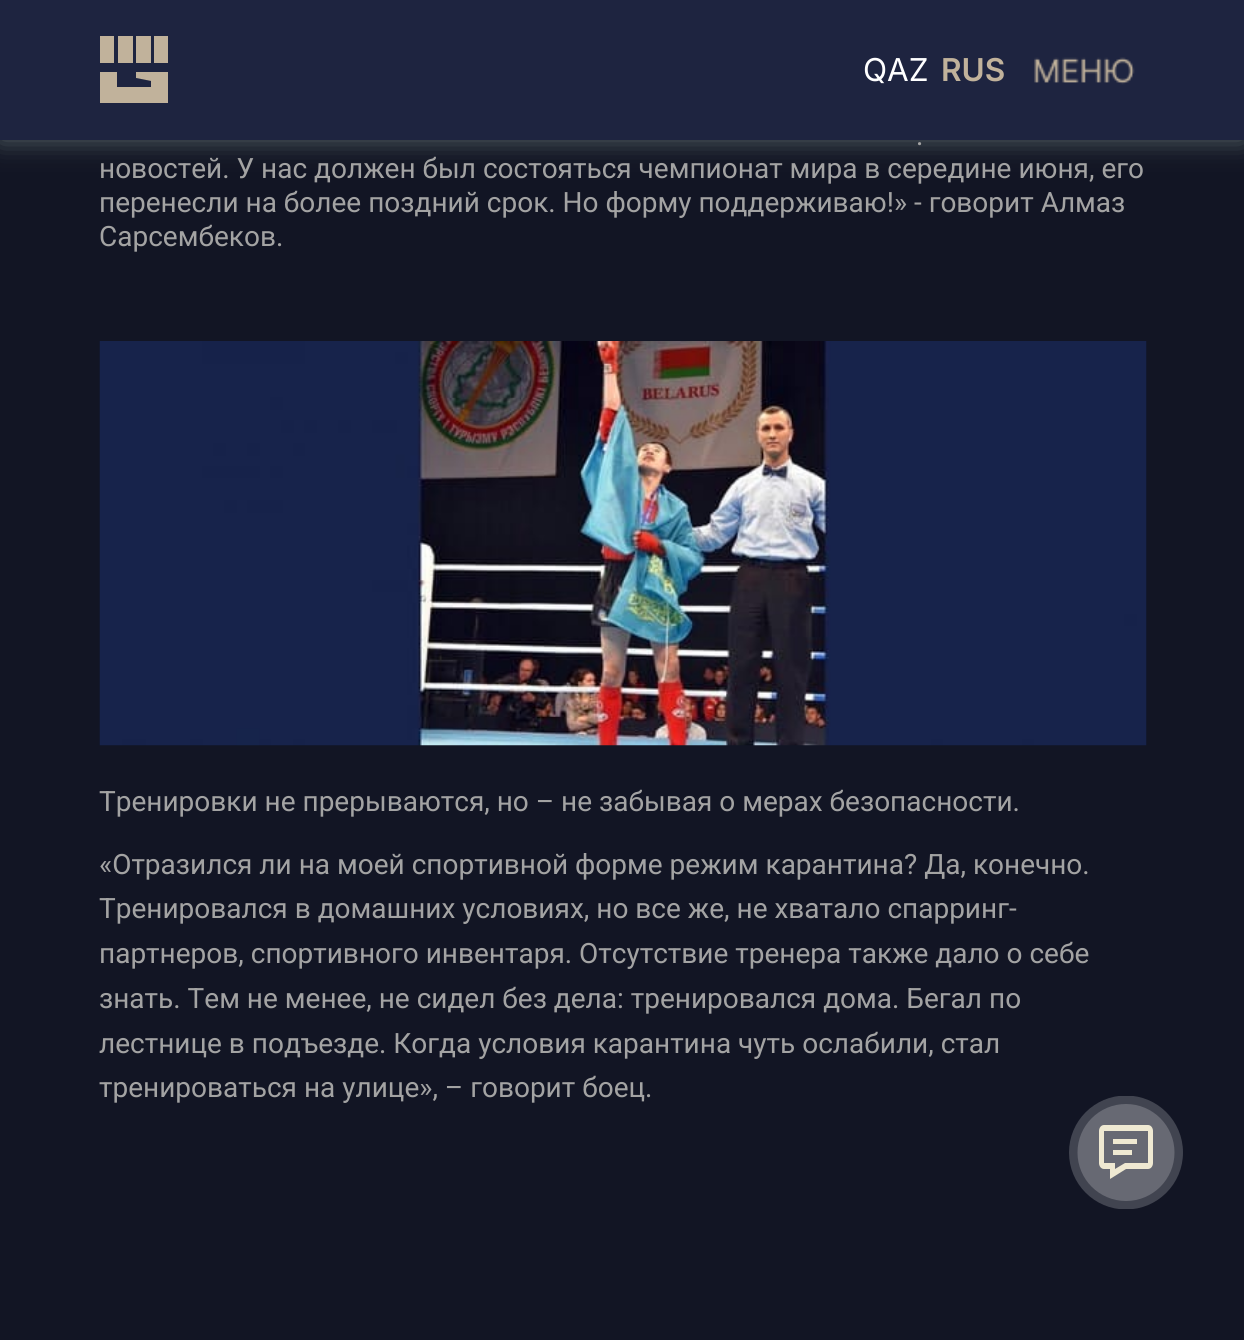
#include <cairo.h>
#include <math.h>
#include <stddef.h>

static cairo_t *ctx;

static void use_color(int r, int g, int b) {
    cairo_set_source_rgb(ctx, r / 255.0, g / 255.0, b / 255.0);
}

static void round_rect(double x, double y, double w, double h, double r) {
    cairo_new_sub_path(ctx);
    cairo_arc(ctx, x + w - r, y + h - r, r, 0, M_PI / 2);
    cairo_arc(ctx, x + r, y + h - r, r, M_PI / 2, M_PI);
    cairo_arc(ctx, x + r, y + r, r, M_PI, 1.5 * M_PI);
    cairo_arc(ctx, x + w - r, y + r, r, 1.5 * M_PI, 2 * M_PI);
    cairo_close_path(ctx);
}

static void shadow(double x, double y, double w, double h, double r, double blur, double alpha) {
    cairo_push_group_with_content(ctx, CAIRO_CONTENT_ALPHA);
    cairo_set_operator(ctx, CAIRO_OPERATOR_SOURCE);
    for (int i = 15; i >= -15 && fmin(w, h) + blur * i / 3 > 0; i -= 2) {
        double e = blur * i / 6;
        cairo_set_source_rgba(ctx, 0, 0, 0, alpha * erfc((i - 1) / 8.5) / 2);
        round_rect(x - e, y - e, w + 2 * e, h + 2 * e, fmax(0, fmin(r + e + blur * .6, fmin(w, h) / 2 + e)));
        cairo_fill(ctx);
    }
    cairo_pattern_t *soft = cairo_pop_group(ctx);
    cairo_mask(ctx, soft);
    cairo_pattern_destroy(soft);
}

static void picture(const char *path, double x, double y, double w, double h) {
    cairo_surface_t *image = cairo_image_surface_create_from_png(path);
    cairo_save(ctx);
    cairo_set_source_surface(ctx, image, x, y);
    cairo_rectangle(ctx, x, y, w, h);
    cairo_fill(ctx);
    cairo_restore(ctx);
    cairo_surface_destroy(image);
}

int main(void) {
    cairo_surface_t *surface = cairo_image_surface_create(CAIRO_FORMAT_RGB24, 1244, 1340);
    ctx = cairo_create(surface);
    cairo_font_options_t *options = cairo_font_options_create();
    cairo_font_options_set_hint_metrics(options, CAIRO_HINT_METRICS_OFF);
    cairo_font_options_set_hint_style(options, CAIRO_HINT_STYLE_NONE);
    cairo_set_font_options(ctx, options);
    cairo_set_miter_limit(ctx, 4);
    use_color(18, 21, 36);
    cairo_paint(ctx);
    use_color(88, 102, 103);
    shadow(0, 0, 1244, 140, 0, 13, 1);
    use_color(30, 36, 64);
    cairo_rectangle(ctx, 0, 0, 1244, 140);
    cairo_fill(ctx);
    use_color(193, 178, 155);
    cairo_set_fill_rule(ctx, CAIRO_FILL_RULE_EVEN_ODD);
    cairo_new_path(ctx);
    cairo_move_to(ctx, 114, 36);
    cairo_line_to(ctx, 100, 36);
    cairo_line_to(ctx, 100, 63);
    cairo_line_to(ctx, 114, 63);
    cairo_close_path(ctx);
    cairo_move_to(ctx, 133, 36);
    cairo_line_to(ctx, 118, 36);
    cairo_line_to(ctx, 118, 63);
    cairo_line_to(ctx, 133, 63);
    cairo_close_path(ctx);
    cairo_move_to(ctx, 151, 36);
    cairo_line_to(ctx, 136, 36);
    cairo_line_to(ctx, 136, 63);
    cairo_line_to(ctx, 151, 63);
    cairo_close_path(ctx);
    cairo_move_to(ctx, 151, 87);
    cairo_line_to(ctx, 117, 87);
    cairo_line_to(ctx, 117, 72);
    cairo_line_to(ctx, 100, 72);
    cairo_line_to(ctx, 100, 103);
    cairo_line_to(ctx, 168, 103);
    cairo_line_to(ctx, 168, 72);
    cairo_line_to(ctx, 136, 72);
    cairo_line_to(ctx, 136, 78);
    cairo_line_to(ctx, 151, 81);
    cairo_close_path(ctx);
    cairo_move_to(ctx, 168, 36);
    cairo_line_to(ctx, 154, 36);
    cairo_line_to(ctx, 154, 63);
    cairo_line_to(ctx, 168, 63);
    cairo_close_path(ctx);
    cairo_fill(ctx);
    cairo_select_font_face(ctx, "Inter", CAIRO_FONT_SLANT_NORMAL, CAIRO_FONT_WEIGHT_NORMAL);
    cairo_set_font_size(ctx, 31.5);
    use_color(255, 255, 255);
    cairo_move_to(ctx, 863, 81);
    cairo_show_text(ctx, "QAZ");
    cairo_select_font_face(ctx, "Inter SemiBold", CAIRO_FONT_SLANT_NORMAL, CAIRO_FONT_WEIGHT_NORMAL);
    use_color(193, 178, 155);
    cairo_move_to(ctx, 941, 81);
    cairo_show_text(ctx, "RUS");
    picture("img1.png", 1034, 57, 101, 28);
    cairo_select_font_face(ctx, "Roboto", CAIRO_FONT_SLANT_NORMAL, CAIRO_FONT_WEIGHT_NORMAL);
    cairo_set_font_size(ctx, 28);
    use_color(163, 163, 163);
    cairo_move_to(ctx, 916, 145);
    cairo_show_text(ctx, ".");
    cairo_move_to(ctx, 99, 178);
    cairo_show_text(ctx, "новостей. У нас должен был состояться чемпионат мира в середине июня, его");
    cairo_move_to(ctx, 99, 212);
    cairo_show_text(ctx, "перенесли на более поздний срок. Но форму поддерживаю!» - говорит Алмаз");
    cairo_move_to(ctx, 99, 246);
    cairo_show_text(ctx, "Сарсембеков.");
    picture("img2.png", 99, 341, 1048, 405);
    cairo_move_to(ctx, 99, 811);
    cairo_show_text(ctx, "Тренировки не прерываются, но – не забывая о мерах безопасности.");
    cairo_move_to(ctx, 99, 874);
    cairo_show_text(ctx, "«Отразился ли на моей спортивной форме режим карантина? Да, конечно.");
    cairo_move_to(ctx, 99, 918);
    cairo_show_text(ctx, "Тренировался в домашних условиях, но все же, не хватало спарринг-");
    cairo_move_to(ctx, 99, 963);
    cairo_show_text(ctx, "партнеров, спортивного инвентаря. Отсутствие тренера также дало о себе");
    cairo_move_to(ctx, 99, 1008);
    cairo_show_text(ctx, "знать. Тем не менее, не сидел без дела: тренировался дома. Бегал по");
    cairo_move_to(ctx, 99, 1053);
    cairo_show_text(ctx, "лестнице в подъезде. Когда условия карантина чуть ослабили, стал");
    cairo_move_to(ctx, 99, 1097);
    cairo_show_text(ctx, "тренироваться на улице», – говорит боец.");
    cairo_save(ctx);
    cairo_set_fill_rule(ctx, CAIRO_FILL_RULE_WINDING);
    cairo_rectangle(ctx, 1069, 1096, 114, 113);
    cairo_clip(ctx);
    use_color(65, 68, 80);
    cairo_arc(ctx, 1126, 1152.5, 57, 0, 2 * M_PI);
    cairo_fill(ctx);
    cairo_restore(ctx);
    use_color(103, 105, 115);
    cairo_arc(ctx, 1126, 1152.5, 48.5, 0, 2 * M_PI);
    cairo_fill(ctx);
    use_color(239, 233, 210);
    cairo_new_path(ctx);
    cairo_move_to(ctx, 1110, 1179);
    cairo_line_to(ctx, 1126, 1169);
    cairo_line_to(ctx, 1148, 1169);
    cairo_curve_to(ctx, 1151, 1169, 1153, 1166, 1153, 1163);
    cairo_line_to(ctx, 1153, 1131);
    cairo_curve_to(ctx, 1153, 1128, 1151, 1125, 1148, 1125);
    cairo_line_to(ctx, 1104, 1125);
    cairo_curve_to(ctx, 1101, 1125, 1099, 1128, 1099, 1131);
    cairo_line_to(ctx, 1099, 1163);
    cairo_curve_to(ctx, 1099, 1166, 1101, 1169, 1104, 1169);
    cairo_line_to(ctx, 1110, 1169);
    cairo_close_path(ctx);
    cairo_move_to(ctx, 1125, 1163);
    cairo_line_to(ctx, 1115, 1169);
    cairo_line_to(ctx, 1115, 1163);
    cairo_line_to(ctx, 1104, 1163);
    cairo_line_to(ctx, 1104, 1131);
    cairo_line_to(ctx, 1148, 1131);
    cairo_line_to(ctx, 1148, 1163);
    cairo_close_path(ctx);
    cairo_move_to(ctx, 1113, 1155);
    cairo_line_to(ctx, 1113, 1150);
    cairo_line_to(ctx, 1132, 1150);
    cairo_line_to(ctx, 1132, 1155);
    cairo_close_path(ctx);
    cairo_move_to(ctx, 1113, 1139);
    cairo_line_to(ctx, 1113, 1144);
    cairo_line_to(ctx, 1137, 1144);
    cairo_line_to(ctx, 1137, 1139);
    cairo_close_path(ctx);
    cairo_fill(ctx);
    cairo_surface_write_to_png(surface, "result.png");
    cairo_font_options_destroy(options);
    cairo_destroy(ctx);
    cairo_surface_destroy(surface);
    return 0;
}
